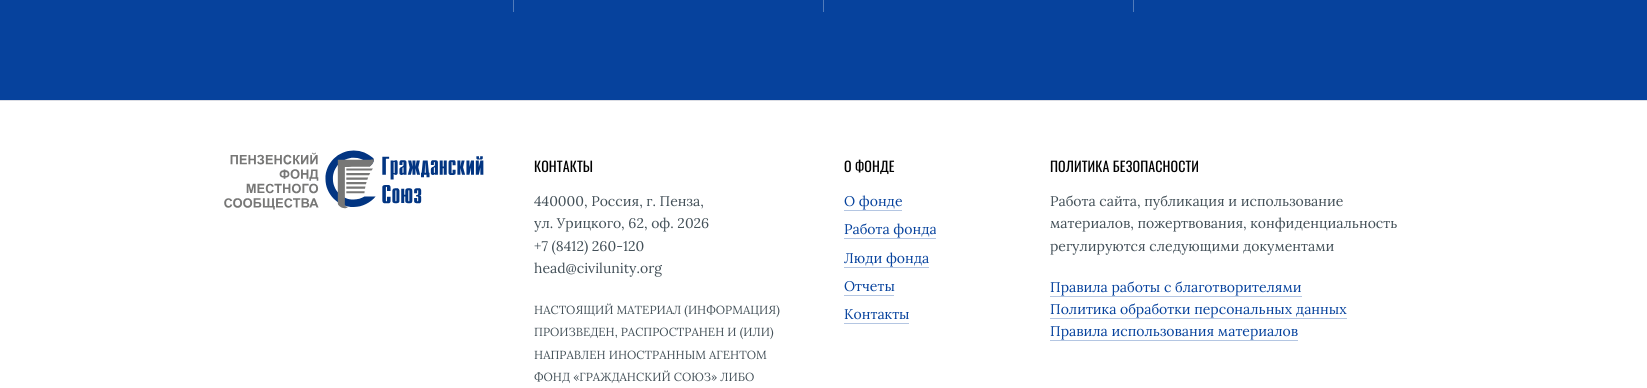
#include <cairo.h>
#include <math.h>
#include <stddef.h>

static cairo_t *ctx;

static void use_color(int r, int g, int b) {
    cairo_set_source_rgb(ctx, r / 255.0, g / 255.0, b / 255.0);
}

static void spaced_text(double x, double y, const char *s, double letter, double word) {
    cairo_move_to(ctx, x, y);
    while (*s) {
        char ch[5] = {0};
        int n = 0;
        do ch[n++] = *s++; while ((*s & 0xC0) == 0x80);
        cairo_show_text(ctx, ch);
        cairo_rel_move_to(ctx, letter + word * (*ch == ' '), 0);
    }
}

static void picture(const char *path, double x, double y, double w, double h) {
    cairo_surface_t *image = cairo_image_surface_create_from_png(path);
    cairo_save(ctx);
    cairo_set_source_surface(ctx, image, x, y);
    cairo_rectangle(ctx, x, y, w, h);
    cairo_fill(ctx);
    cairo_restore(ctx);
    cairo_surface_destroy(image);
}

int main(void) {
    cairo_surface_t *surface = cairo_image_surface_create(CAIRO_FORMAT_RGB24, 1647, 388);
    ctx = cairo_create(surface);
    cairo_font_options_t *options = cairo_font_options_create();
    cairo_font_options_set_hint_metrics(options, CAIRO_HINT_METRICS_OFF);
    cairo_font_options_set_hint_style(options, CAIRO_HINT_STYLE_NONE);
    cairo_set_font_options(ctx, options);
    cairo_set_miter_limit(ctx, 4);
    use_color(255, 255, 255);
    cairo_paint(ctx);
    use_color(6, 66, 157);
    cairo_rectangle(ctx, 0, 0, 1647, 100);
    cairo_fill(ctx);
    use_color(81, 123, 186);
    cairo_rectangle(ctx, 513, 0, 1, 12);
    cairo_fill(ctx);
    cairo_rectangle(ctx, 823, 0, 1, 12);
    cairo_fill(ctx);
    cairo_rectangle(ctx, 1133, 0, 1, 12);
    cairo_fill(ctx);
    use_color(219, 221, 228);
    cairo_rectangle(ctx, 0, 100, 1647, 1);
    cairo_fill(ctx);
    picture("img1.png", 224, 150, 260, 60);
    cairo_select_font_face(ctx, "Oswald", CAIRO_FONT_SLANT_NORMAL, CAIRO_FONT_WEIGHT_NORMAL);
    cairo_set_font_size(ctx, 14);
    use_color(1, 1, 1);
    spaced_text(534, 172, "КОНТАКТЫ", 0.1, 0);
    cairo_select_font_face(ctx, "Lora", CAIRO_FONT_SLANT_NORMAL, CAIRO_FONT_WEIGHT_NORMAL);
    use_color(67, 80, 88);
    cairo_move_to(ctx, 534, 206);
    cairo_show_text(ctx, "440000, Россия, г. Пенза,");
    cairo_move_to(ctx, 534, 228);
    cairo_show_text(ctx, "ул. Урицкого, 62, оф. 2026");
    cairo_move_to(ctx, 534, 251);
    cairo_show_text(ctx, "+7 (8412) 260-120");
    cairo_move_to(ctx, 534, 273);
    cairo_show_text(ctx, "head@civilunity.org");
    cairo_set_font_size(ctx, 11.7);
    cairo_move_to(ctx, 534, 314);
    cairo_show_text(ctx, "НАСТОЯЩИЙ МАТЕРИАЛ (ИНФОРМАЦИЯ)");
    cairo_move_to(ctx, 534, 336);
    cairo_show_text(ctx, "ПРОИЗВЕДЕН, РАСПРОСТРАНЕН И (ИЛИ)");
    cairo_move_to(ctx, 534, 359);
    cairo_show_text(ctx, "НАПРАВЛЕН ИНОСТРАННЫМ АГЕНТОМ");
    cairo_move_to(ctx, 534, 381);
    cairo_show_text(ctx, "ФОНД «ГРАЖДАНСКИЙ СОЮЗ» ЛИБО");
    cairo_select_font_face(ctx, "Oswald", CAIRO_FONT_SLANT_NORMAL, CAIRO_FONT_WEIGHT_NORMAL);
    cairo_set_font_size(ctx, 14);
    use_color(1, 1, 1);
    spaced_text(844, 172, "О ФОНДЕ", 0.1, 0);
    cairo_select_font_face(ctx, "Lora", CAIRO_FONT_SLANT_NORMAL, CAIRO_FONT_WEIGHT_NORMAL);
    use_color(6, 66, 157);
    cairo_move_to(ctx, 844, 206);
    cairo_show_text(ctx, "О фонде");
    use_color(180, 198, 226);
    cairo_rectangle(ctx, 844, 210, 58, 1);
    cairo_fill(ctx);
    use_color(6, 66, 157);
    cairo_move_to(ctx, 844, 234);
    cairo_show_text(ctx, "Работа фонда");
    use_color(180, 198, 226);
    cairo_rectangle(ctx, 844, 238, 92, 1);
    cairo_fill(ctx);
    use_color(6, 66, 157);
    cairo_move_to(ctx, 844, 263);
    cairo_show_text(ctx, "Люди фонда");
    use_color(180, 198, 226);
    cairo_rectangle(ctx, 844, 267, 85, 1);
    cairo_fill(ctx);
    use_color(6, 66, 157);
    cairo_move_to(ctx, 844, 291);
    cairo_show_text(ctx, "Отчеты");
    use_color(180, 198, 226);
    cairo_rectangle(ctx, 844, 295, 50, 1);
    cairo_fill(ctx);
    use_color(6, 66, 157);
    cairo_move_to(ctx, 844, 319);
    cairo_show_text(ctx, "Контакты");
    use_color(180, 198, 226);
    cairo_rectangle(ctx, 844, 323, 65, 1);
    cairo_fill(ctx);
    cairo_select_font_face(ctx, "Oswald", CAIRO_FONT_SLANT_NORMAL, CAIRO_FONT_WEIGHT_NORMAL);
    use_color(1, 1, 1);
    spaced_text(1050, 172, "ПОЛИТИКА БЕЗОПАСНОСТИ", 0.1, 0);
    cairo_select_font_face(ctx, "Lora", CAIRO_FONT_SLANT_NORMAL, CAIRO_FONT_WEIGHT_NORMAL);
    use_color(67, 80, 88);
    cairo_move_to(ctx, 1050, 206);
    cairo_show_text(ctx, "Работа сайта, публикация и использование");
    cairo_move_to(ctx, 1050, 228);
    cairo_show_text(ctx, "материалов, пожертвования, конфиденциальность");
    cairo_move_to(ctx, 1050, 251);
    cairo_show_text(ctx, "регулируются следующими документами");
    use_color(6, 66, 157);
    cairo_move_to(ctx, 1050, 292);
    cairo_show_text(ctx, "Правила работы с благотворителями");
    use_color(180, 198, 226);
    cairo_rectangle(ctx, 1050, 296, 252, 1);
    cairo_fill(ctx);
    use_color(6, 66, 157);
    cairo_move_to(ctx, 1050, 314);
    cairo_show_text(ctx, "Политика обработки персональных данных");
    use_color(180, 198, 226);
    cairo_rectangle(ctx, 1050, 318, 297, 1);
    cairo_fill(ctx);
    use_color(6, 66, 157);
    cairo_move_to(ctx, 1050, 336);
    cairo_show_text(ctx, "Правила использования материалов");
    use_color(180, 198, 226);
    cairo_rectangle(ctx, 1050, 340, 248, 1);
    cairo_fill(ctx);
    cairo_surface_write_to_png(surface, "result.png");
    cairo_font_options_destroy(options);
    cairo_destroy(ctx);
    cairo_surface_destroy(surface);
    return 0;
}
